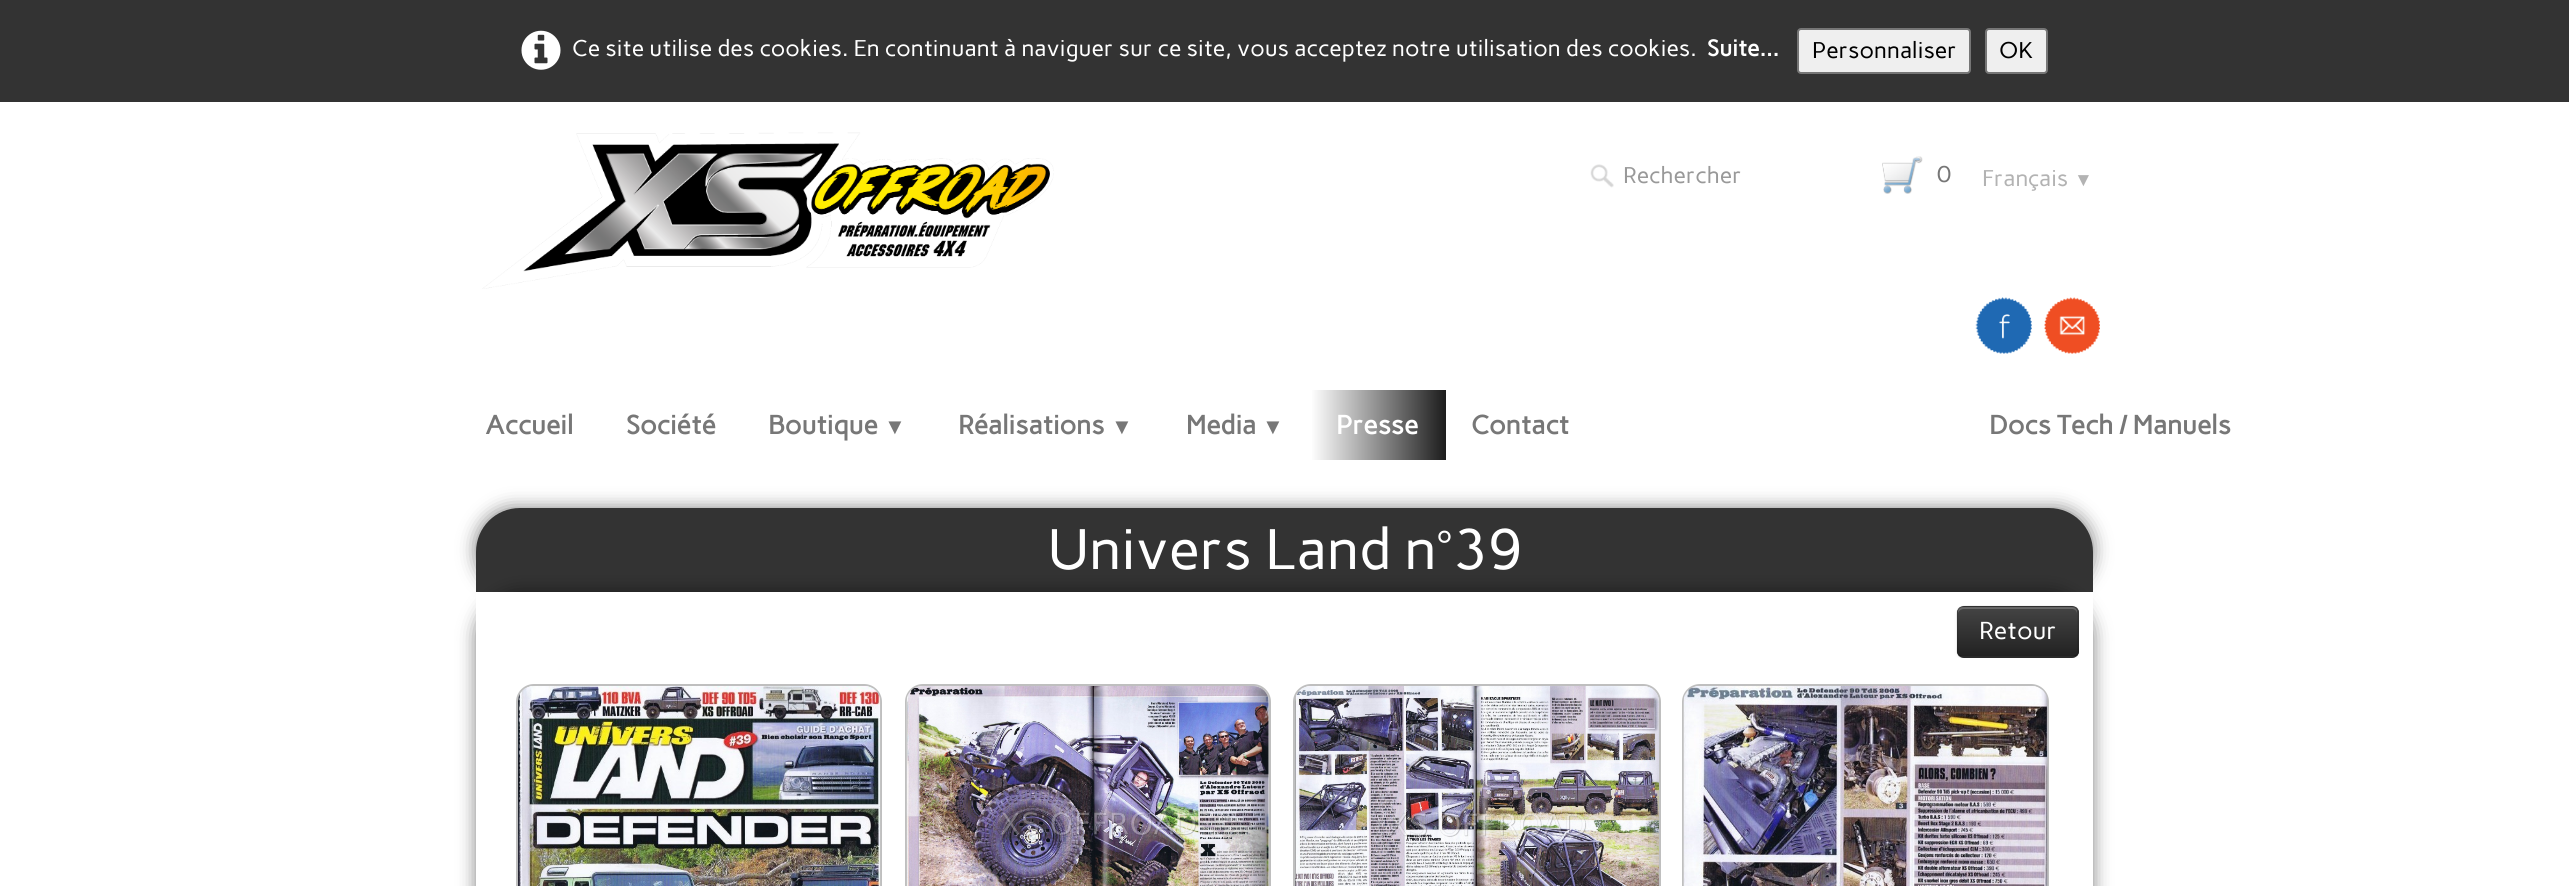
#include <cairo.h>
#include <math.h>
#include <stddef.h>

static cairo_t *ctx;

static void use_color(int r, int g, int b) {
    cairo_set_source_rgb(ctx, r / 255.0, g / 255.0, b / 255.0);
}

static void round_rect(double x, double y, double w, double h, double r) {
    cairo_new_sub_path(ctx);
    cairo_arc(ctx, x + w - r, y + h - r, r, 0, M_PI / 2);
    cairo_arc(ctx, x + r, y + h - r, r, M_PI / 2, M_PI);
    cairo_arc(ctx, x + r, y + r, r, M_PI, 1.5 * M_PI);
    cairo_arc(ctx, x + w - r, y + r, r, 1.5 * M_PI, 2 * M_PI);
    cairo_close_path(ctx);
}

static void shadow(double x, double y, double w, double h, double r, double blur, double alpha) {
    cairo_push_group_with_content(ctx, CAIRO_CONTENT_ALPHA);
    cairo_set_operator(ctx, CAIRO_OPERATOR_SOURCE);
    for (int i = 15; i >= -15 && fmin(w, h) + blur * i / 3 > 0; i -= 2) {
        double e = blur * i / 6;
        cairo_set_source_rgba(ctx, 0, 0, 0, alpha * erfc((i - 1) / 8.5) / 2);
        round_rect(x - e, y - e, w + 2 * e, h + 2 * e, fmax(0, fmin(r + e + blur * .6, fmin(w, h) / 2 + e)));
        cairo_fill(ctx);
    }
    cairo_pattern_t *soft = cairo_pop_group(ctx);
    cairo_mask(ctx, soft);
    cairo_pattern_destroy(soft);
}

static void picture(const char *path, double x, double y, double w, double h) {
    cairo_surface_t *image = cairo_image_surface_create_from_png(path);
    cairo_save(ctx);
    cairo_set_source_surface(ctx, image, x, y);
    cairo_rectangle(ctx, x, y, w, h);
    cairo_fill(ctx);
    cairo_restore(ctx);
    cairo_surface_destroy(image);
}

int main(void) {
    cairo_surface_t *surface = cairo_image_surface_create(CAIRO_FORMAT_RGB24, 2569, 886);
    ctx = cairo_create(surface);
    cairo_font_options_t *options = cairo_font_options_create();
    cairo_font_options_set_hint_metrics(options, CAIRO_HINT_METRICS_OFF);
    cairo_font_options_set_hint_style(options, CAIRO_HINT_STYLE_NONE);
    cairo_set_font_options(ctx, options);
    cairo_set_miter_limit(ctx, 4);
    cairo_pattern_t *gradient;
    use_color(255, 255, 255);
    cairo_paint(ctx);
    use_color(51, 51, 51);
    cairo_rectangle(ctx, 0, 0, 2569, 102);
    cairo_fill(ctx);
    picture("img1.png", 521, 30, 40, 40);
    cairo_select_font_face(ctx, "Carme", CAIRO_FONT_SLANT_NORMAL, CAIRO_FONT_WEIGHT_NORMAL);
    cairo_set_font_size(ctx, 22.75);
    use_color(255, 255, 255);
    cairo_move_to(ctx, 572, 56);
    cairo_show_text(ctx, "Ce site utilise des cookies. En continuant à naviguer sur ce site, vous acceptez notre utilisation des cookies.");
    cairo_select_font_face(ctx, "Carme", CAIRO_FONT_SLANT_NORMAL, CAIRO_FONT_WEIGHT_BOLD);
    cairo_move_to(ctx, 1707, 56);
    cairo_show_text(ctx, "Suite...");
    use_color(239, 239, 239);
    round_rect(1798, 29, 172, 44, 3);
    cairo_fill_preserve(ctx);
    use_color(118, 118, 118);
    cairo_stroke(ctx);
    cairo_select_font_face(ctx, "Carme", CAIRO_FONT_SLANT_NORMAL, CAIRO_FONT_WEIGHT_NORMAL);
    use_color(0, 0, 0);
    cairo_move_to(ctx, 1812, 58);
    cairo_show_text(ctx, "Personnaliser");
    use_color(239, 239, 239);
    round_rect(1986, 29, 61, 44, 3);
    cairo_fill_preserve(ctx);
    use_color(118, 118, 118);
    cairo_stroke(ctx);
    use_color(0, 0, 0);
    cairo_move_to(ctx, 1999, 58);
    cairo_show_text(ctx, "OK");
    picture("img2.png", 482, 132, 572, 157);
    picture("img3.png", 1590, 164, 24, 24);
    use_color(153, 153, 153);
    cairo_move_to(ctx, 1623, 183);
    cairo_show_text(ctx, "Rechercher");
    picture("img4.png", 1882, 156, 41, 38);
    use_color(119, 119, 119);
    cairo_move_to(ctx, 1937, 182);
    cairo_show_text(ctx, "0");
    use_color(179, 179, 179);
    cairo_move_to(ctx, 1982, 186);
    cairo_show_text(ctx, "Français");
    cairo_select_font_face(ctx, "Liberation Sans", CAIRO_FONT_SLANT_NORMAL, CAIRO_FONT_WEIGHT_NORMAL);
    cairo_set_font_size(ctx, 19);
    cairo_move_to(ctx, 2074, 186);
    cairo_show_text(ctx, "▼");
    picture("img5.png", 1975, 297, 57, 57);
    picture("img6.png", 2044, 297, 56, 57);
    cairo_select_font_face(ctx, "Carme", CAIRO_FONT_SLANT_NORMAL, CAIRO_FONT_WEIGHT_BOLD);
    cairo_set_font_size(ctx, 26.25);
    use_color(119, 119, 119);
    cairo_move_to(ctx, 485, 434);
    cairo_show_text(ctx, "Accueil");
    cairo_move_to(ctx, 626, 434);
    cairo_show_text(ctx, "Société");
    cairo_move_to(ctx, 768, 434);
    cairo_show_text(ctx, "Boutique");
    cairo_select_font_face(ctx, "Liberation Sans", CAIRO_FONT_SLANT_NORMAL, CAIRO_FONT_WEIGHT_BOLD);
    cairo_set_font_size(ctx, 22);
    cairo_move_to(ctx, 884, 434);
    cairo_show_text(ctx, "▼");
    cairo_select_font_face(ctx, "Carme", CAIRO_FONT_SLANT_NORMAL, CAIRO_FONT_WEIGHT_BOLD);
    cairo_set_font_size(ctx, 26.25);
    cairo_move_to(ctx, 958, 434);
    cairo_show_text(ctx, "Réalisations");
    cairo_select_font_face(ctx, "Liberation Sans", CAIRO_FONT_SLANT_NORMAL, CAIRO_FONT_WEIGHT_BOLD);
    cairo_set_font_size(ctx, 22);
    cairo_move_to(ctx, 1111, 434);
    cairo_show_text(ctx, "▼");
    cairo_select_font_face(ctx, "Carme", CAIRO_FONT_SLANT_NORMAL, CAIRO_FONT_WEIGHT_BOLD);
    cairo_set_font_size(ctx, 26.25);
    cairo_move_to(ctx, 1186, 434);
    cairo_show_text(ctx, "Media");
    cairo_select_font_face(ctx, "Liberation Sans", CAIRO_FONT_SLANT_NORMAL, CAIRO_FONT_WEIGHT_BOLD);
    cairo_set_font_size(ctx, 22);
    cairo_move_to(ctx, 1262, 434);
    cairo_show_text(ctx, "▼");
    gradient = cairo_pattern_create_linear(1311, 425, 1446, 425);
    cairo_pattern_add_color_stop_rgba(gradient, 0, 1, 1, 1, 1);
    cairo_pattern_add_color_stop_rgba(gradient, 1, 0.11, 0.11, 0.11, 1);
    cairo_set_source(ctx, gradient);
    cairo_pattern_destroy(gradient);
    cairo_rectangle(ctx, 1312, 390, 134, 70);
    cairo_fill(ctx);
    cairo_select_font_face(ctx, "Carme", CAIRO_FONT_SLANT_NORMAL, CAIRO_FONT_WEIGHT_BOLD);
    cairo_set_font_size(ctx, 26.25);
    use_color(255, 255, 255);
    cairo_move_to(ctx, 1336, 434);
    cairo_show_text(ctx, "Presse");
    use_color(119, 119, 119);
    cairo_move_to(ctx, 1471, 434);
    cairo_show_text(ctx, "Contact");
    cairo_move_to(ctx, 1989, 434);
    cairo_show_text(ctx, "Docs Tech / Manuels");
    use_color(0, 0, 0);
    shadow(476, 508, 1617, 84, 44, 9, 0.5);
    use_color(51, 51, 51);
    cairo_new_path(ctx);
    cairo_move_to(ctx, 520, 508);
    cairo_line_to(ctx, 2049, 508);
    cairo_curve_to(ctx, 2073.5, 508, 2093, 527.5, 2093, 552);
    cairo_line_to(ctx, 2093, 592);
    cairo_line_to(ctx, 476, 592);
    cairo_line_to(ctx, 476, 552);
    cairo_curve_to(ctx, 476, 527.5, 495.5, 508, 520, 508);
    cairo_close_path(ctx);
    cairo_fill(ctx);
    use_color(0, 0, 0);
    shadow(476, 592, 1617, 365, 44, 9, 0.5);
    cairo_select_font_face(ctx, "Carme", CAIRO_FONT_SLANT_NORMAL, CAIRO_FONT_WEIGHT_NORMAL);
    cairo_set_font_size(ctx, 56.9);
    use_color(255, 255, 255);
    cairo_move_to(ctx, 1047, 569);
    cairo_show_text(ctx, "Univers Land n°39");
    cairo_rectangle(ctx, 476, 592, 1617, 294);
    cairo_fill(ctx);
    cairo_save(ctx);
    cairo_rectangle(ctx, 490, 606, 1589, 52);
    cairo_clip(ctx);
    use_color(0, 0, 0);
    shadow(1957, 607, 122, 53, 7, 2, 0.05);
    cairo_restore(ctx);
    use_color(54, 54, 54);
    round_rect(1957, 606, 122, 52, 7);
    cairo_fill(ctx);
    cairo_save(ctx);
    round_rect(1957, 606, 122, 52, 7);
    cairo_clip(ctx);
    gradient = cairo_pattern_create_linear(2018, 607, 2018, 656);
    cairo_pattern_add_color_stop_rgba(gradient, 0, 0.267, 0.267, 0.267, 1);
    cairo_pattern_add_color_stop_rgba(gradient, 1, 0.133, 0.133, 0.133, 1);
    cairo_set_source(ctx, gradient);
    cairo_pattern_destroy(gradient);
    cairo_rectangle(ctx, 1957, 607, 122, 49);
    cairo_fill(ctx);
    cairo_restore(ctx);
    cairo_set_source_rgba(ctx, 1, 1, 1, 0.2);
    cairo_new_path(ctx);
    cairo_move_to(ctx, 1964, 609);
    cairo_line_to(ctx, 2072, 609);
    cairo_curve_to(ctx, 2075, 609, 2077, 611, 2077, 614);
    cairo_line_to(ctx, 2077, 612);
    cairo_curve_to(ctx, 2077, 609, 2075, 607, 2072, 607);
    cairo_line_to(ctx, 1963, 607);
    cairo_curve_to(ctx, 1960, 607, 1958, 609, 1958, 612);
    cairo_line_to(ctx, 1958, 614);
    cairo_curve_to(ctx, 1958, 611, 1961, 609, 1964, 609);
    cairo_close_path(ctx);
    cairo_fill(ctx);
    cairo_new_path(ctx);
    cairo_move_to(ctx, 2076.5, 655.5);
    cairo_curve_to(ctx, 2075, 656.5, 2073.5, 657, 2072, 657);
    cairo_line_to(ctx, 1963.5, 657);
    cairo_curve_to(ctx, 1962, 657, 1960.5, 656.5, 1959, 655.5);
    cairo_set_source_rgba(ctx, 0, 0, 0, 0.25);
    cairo_set_line_width(ctx, 1.8);
    cairo_stroke(ctx);
    cairo_new_path(ctx);
    cairo_move_to(ctx, 1959, 655.5);
    cairo_curve_to(ctx, 1956.5, 652.5, 1957.5, 648, 1957.5, 644.5);
    cairo_line_to(ctx, 1957.5, 632);
    cairo_curve_to(ctx, 1957.5, 603.5, 1953, 606.5, 1981.5, 606.5);
    cairo_line_to(ctx, 2054, 606.5);
    cairo_curve_to(ctx, 2082.5, 606.5, 2078, 603.5, 2078, 632);
    cairo_line_to(ctx, 2078, 644.5);
    cairo_curve_to(ctx, 2078, 648, 2079, 652.5, 2076.5, 655.5);
    cairo_set_source_rgba(ctx, 0, 0, 0, 0.1);
    cairo_stroke(ctx);
    cairo_set_font_size(ctx, 24.5);
    use_color(255, 255, 255);
    cairo_move_to(ctx, 1979, 639);
    cairo_show_text(ctx, "Retour");
    round_rect(517, 685, 364, 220, 17);
    use_color(191, 191, 191);
    cairo_set_line_width(ctx, 2);
    cairo_stroke(ctx);
    picture("img7.png", 518, 686, 363, 200);
    round_rect(906, 685, 364, 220, 17);
    cairo_stroke(ctx);
    picture("img8.png", 906, 686, 363, 200);
    round_rect(1294, 685, 366, 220, 17);
    cairo_stroke(ctx);
    picture("img9.png", 1295, 686, 364, 200);
    round_rect(1683, 685, 365, 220, 17);
    cairo_stroke(ctx);
    picture("img10.png", 1683, 686, 365, 200);
    cairo_surface_write_to_png(surface, "result.png");
    cairo_font_options_destroy(options);
    cairo_destroy(ctx);
    cairo_surface_destroy(surface);
    return 0;
}
